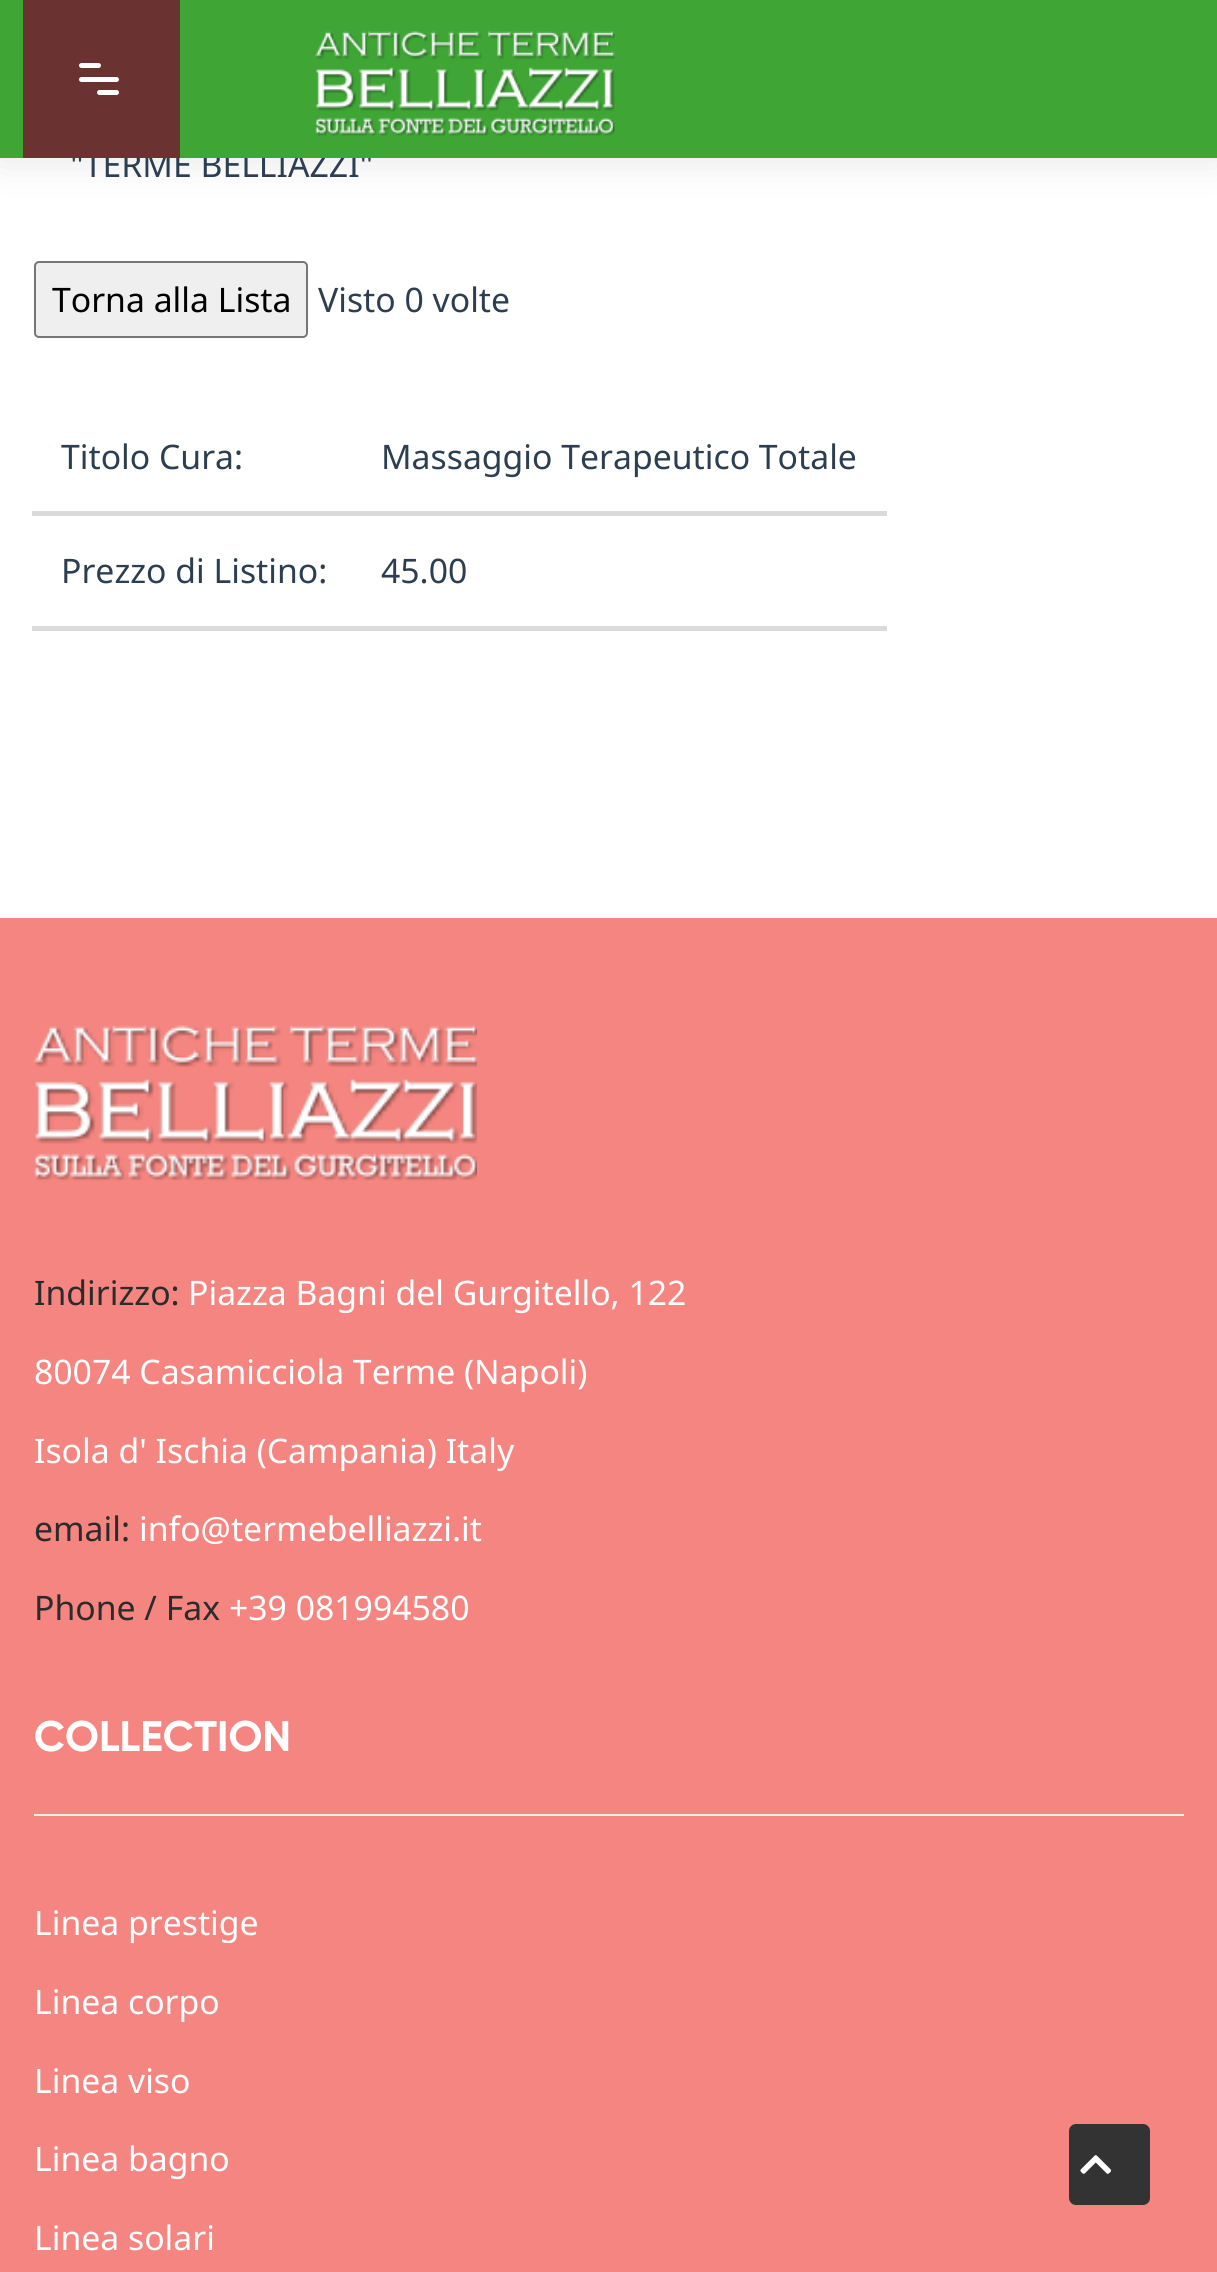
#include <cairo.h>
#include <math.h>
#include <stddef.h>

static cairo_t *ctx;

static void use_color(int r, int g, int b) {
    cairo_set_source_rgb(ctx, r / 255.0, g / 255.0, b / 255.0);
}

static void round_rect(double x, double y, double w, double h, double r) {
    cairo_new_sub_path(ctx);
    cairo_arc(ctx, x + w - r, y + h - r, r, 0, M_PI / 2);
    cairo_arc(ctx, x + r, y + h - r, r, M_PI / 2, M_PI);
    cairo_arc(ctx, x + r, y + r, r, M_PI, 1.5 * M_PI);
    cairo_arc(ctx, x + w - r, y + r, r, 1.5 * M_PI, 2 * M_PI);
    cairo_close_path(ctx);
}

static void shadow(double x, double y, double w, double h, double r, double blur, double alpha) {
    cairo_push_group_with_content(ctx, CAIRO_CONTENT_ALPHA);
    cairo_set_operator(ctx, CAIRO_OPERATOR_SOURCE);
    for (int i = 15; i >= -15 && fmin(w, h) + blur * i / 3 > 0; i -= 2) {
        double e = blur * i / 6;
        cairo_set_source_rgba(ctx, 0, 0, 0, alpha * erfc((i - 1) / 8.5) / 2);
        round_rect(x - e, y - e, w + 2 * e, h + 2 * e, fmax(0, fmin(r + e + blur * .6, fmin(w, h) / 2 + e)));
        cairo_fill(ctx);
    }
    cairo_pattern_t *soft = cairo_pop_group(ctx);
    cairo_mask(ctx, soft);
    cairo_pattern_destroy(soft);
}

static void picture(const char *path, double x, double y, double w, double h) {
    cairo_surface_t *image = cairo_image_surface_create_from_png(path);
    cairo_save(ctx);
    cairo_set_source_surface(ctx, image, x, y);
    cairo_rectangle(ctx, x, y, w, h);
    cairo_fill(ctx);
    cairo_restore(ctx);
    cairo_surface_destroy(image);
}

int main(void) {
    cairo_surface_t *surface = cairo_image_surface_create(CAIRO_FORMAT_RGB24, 1217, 2272);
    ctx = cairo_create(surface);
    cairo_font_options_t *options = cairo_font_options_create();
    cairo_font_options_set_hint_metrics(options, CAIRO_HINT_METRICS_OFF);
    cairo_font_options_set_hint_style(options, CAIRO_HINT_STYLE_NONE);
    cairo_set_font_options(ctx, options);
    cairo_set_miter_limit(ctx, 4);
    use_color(255, 255, 255);
    cairo_paint(ctx);
    use_color(0, 0, 0);
    shadow(-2, -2, 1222, 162, 0, 20, 0.1);
    cairo_select_font_face(ctx, "Noto Sans", CAIRO_FONT_SLANT_NORMAL, CAIRO_FONT_WEIGHT_NORMAL);
    cairo_set_font_size(ctx, 33.75);
    use_color(44, 62, 80);
    cairo_move_to(ctx, 70, 177);
    cairo_show_text(ctx, "\"TERME BELLIAZZI\"");
    use_color(63, 166, 54);
    cairo_rectangle(ctx, 0, 0, 1217, 158);
    cairo_fill(ctx);
    use_color(106, 51, 50);
    cairo_rectangle(ctx, 23, 0, 157, 158);
    cairo_fill(ctx);
    use_color(255, 255, 255);
    round_rect(79, 77, 40, 5, 2.5);
    cairo_fill(ctx);
    round_rect(79, 63, 22, 5, 2.5);
    cairo_fill(ctx);
    round_rect(97, 90, 22, 5, 2.5);
    cairo_fill(ctx);
    picture("img1.png", 315, 31, 300, 105);
    use_color(239, 239, 239);
    round_rect(35, 262, 272, 75, 4);
    cairo_fill_preserve(ctx);
    use_color(118, 118, 118);
    cairo_stroke(ctx);
    use_color(0, 0, 0);
    cairo_move_to(ctx, 52, 312);
    cairo_show_text(ctx, "Torna alla Lista");
    use_color(44, 62, 80);
    cairo_move_to(ctx, 318, 312);
    cairo_show_text(ctx, "Visto 0 volte");
    use_color(218, 218, 218);
    cairo_rectangle(ctx, 32, 511, 855, 5);
    cairo_fill(ctx);
    use_color(44, 62, 80);
    cairo_move_to(ctx, 61, 469);
    cairo_show_text(ctx, "Titolo Cura:");
    cairo_move_to(ctx, 381, 469);
    cairo_show_text(ctx, "Massaggio Terapeutico Totale");
    use_color(218, 218, 218);
    cairo_rectangle(ctx, 32, 626, 855, 5);
    cairo_fill(ctx);
    use_color(44, 62, 80);
    cairo_move_to(ctx, 61, 583);
    cairo_show_text(ctx, "Prezzo di Listino:");
    cairo_move_to(ctx, 381, 583);
    cairo_show_text(ctx, "45.00");
    use_color(244, 133, 128);
    cairo_rectangle(ctx, 0, 918, 1217, 1354);
    cairo_fill(ctx);
    picture("img2.png", 33, 1025, 444, 156);
    use_color(43, 43, 43);
    cairo_move_to(ctx, 34, 1305);
    cairo_show_text(ctx, "Indirizzo:");
    use_color(255, 255, 255);
    cairo_move_to(ctx, 188, 1305);
    cairo_show_text(ctx, "Piazza Bagni del Gurgitello, 122");
    cairo_move_to(ctx, 34, 1384);
    cairo_show_text(ctx, "80074 Casamicciola Terme (Napoli)");
    cairo_move_to(ctx, 34, 1463);
    cairo_show_text(ctx, "Isola d' Ischia (Campania) Italy");
    use_color(43, 43, 43);
    cairo_move_to(ctx, 34, 1541);
    cairo_show_text(ctx, "email:");
    use_color(255, 255, 255);
    cairo_move_to(ctx, 139, 1541);
    cairo_show_text(ctx, "info@termebelliazzi.it");
    use_color(43, 43, 43);
    cairo_move_to(ctx, 34, 1620);
    cairo_show_text(ctx, "Phone / Fax");
    use_color(255, 255, 255);
    cairo_move_to(ctx, 229, 1620);
    cairo_show_text(ctx, "+39 081994580");
    use_color(238, 238, 238);
    cairo_rectangle(ctx, 34, 1814, 1150, 2);
    cairo_fill(ctx);
    cairo_select_font_face(ctx, "Gilroy", CAIRO_FONT_SLANT_NORMAL, CAIRO_FONT_WEIGHT_BOLD);
    cairo_set_font_size(ctx, 42.75);
    use_color(255, 255, 255);
    cairo_move_to(ctx, 34, 1751);
    cairo_show_text(ctx, "COLLECTION");
    cairo_select_font_face(ctx, "Noto Sans", CAIRO_FONT_SLANT_NORMAL, CAIRO_FONT_WEIGHT_NORMAL);
    cairo_set_font_size(ctx, 33.75);
    cairo_move_to(ctx, 34, 1935);
    cairo_show_text(ctx, "Linea prestige");
    cairo_move_to(ctx, 34, 2014);
    cairo_show_text(ctx, "Linea corpo");
    cairo_move_to(ctx, 34, 2093);
    cairo_show_text(ctx, "Linea viso");
    cairo_move_to(ctx, 34, 2171);
    cairo_show_text(ctx, "Linea bagno");
    cairo_move_to(ctx, 34, 2250);
    cairo_show_text(ctx, "Linea solari");
    use_color(51, 51, 51);
    round_rect(1069, 2124, 81, 81, 7);
    cairo_fill(ctx);
    picture("img3.png", 1080, 2155, 32, 19);
    cairo_surface_write_to_png(surface, "result.png");
    cairo_font_options_destroy(options);
    cairo_destroy(ctx);
    cairo_surface_destroy(surface);
    return 0;
}
